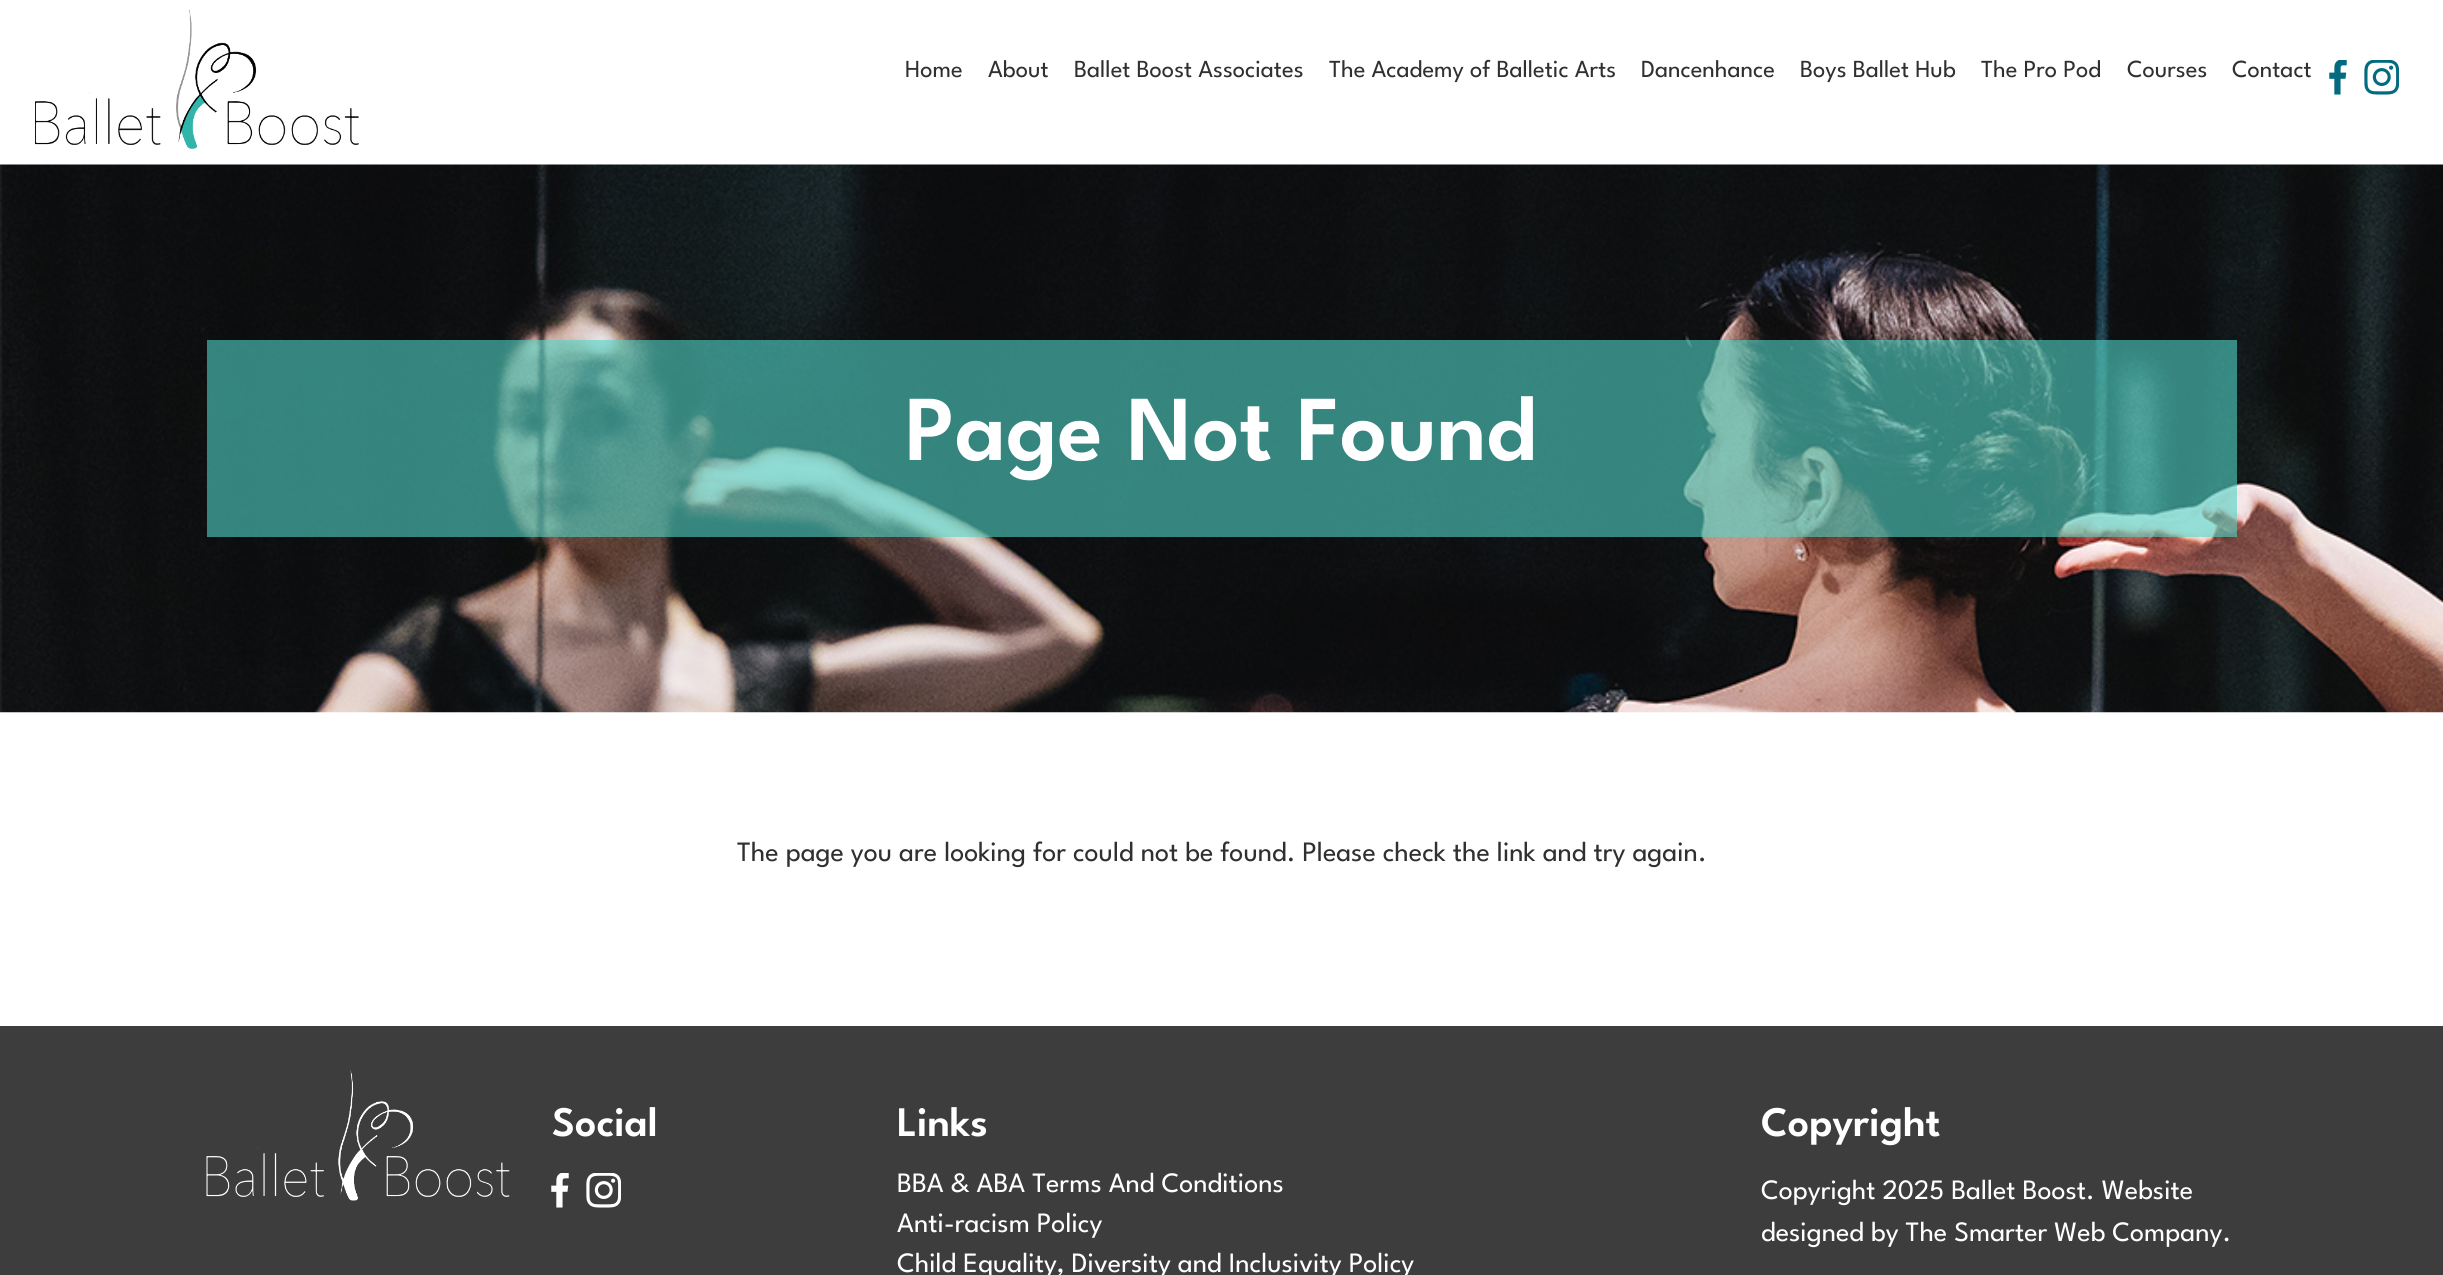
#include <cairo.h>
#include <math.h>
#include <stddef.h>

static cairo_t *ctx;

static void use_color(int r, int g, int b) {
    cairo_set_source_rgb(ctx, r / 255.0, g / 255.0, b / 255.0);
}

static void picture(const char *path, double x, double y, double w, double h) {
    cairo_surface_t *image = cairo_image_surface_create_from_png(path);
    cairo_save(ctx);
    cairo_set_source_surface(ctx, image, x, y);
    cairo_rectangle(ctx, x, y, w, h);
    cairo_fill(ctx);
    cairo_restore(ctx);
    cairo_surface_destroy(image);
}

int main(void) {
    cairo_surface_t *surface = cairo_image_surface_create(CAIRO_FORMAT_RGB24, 2443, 1275);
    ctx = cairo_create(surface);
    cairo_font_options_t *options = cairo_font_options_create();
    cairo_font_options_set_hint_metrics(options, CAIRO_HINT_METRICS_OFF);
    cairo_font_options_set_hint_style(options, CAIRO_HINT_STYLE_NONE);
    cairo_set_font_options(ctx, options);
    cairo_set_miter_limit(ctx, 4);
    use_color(255, 255, 255);
    cairo_paint(ctx);
    picture("img1.png", 35, 9, 324, 140);
    cairo_select_font_face(ctx, "League Spartan", CAIRO_FONT_SLANT_NORMAL, CAIRO_FONT_WEIGHT_NORMAL);
    cairo_set_font_size(ctx, 24.5);
    use_color(48, 48, 48);
    cairo_move_to(ctx, 905, 77);
    cairo_show_text(ctx, "Home");
    cairo_move_to(ctx, 988, 77);
    cairo_show_text(ctx, "About");
    cairo_move_to(ctx, 1074, 77);
    cairo_show_text(ctx, "Ballet Boost Associates");
    cairo_move_to(ctx, 1329, 77);
    cairo_show_text(ctx, "The Academy of Balletic Arts");
    cairo_move_to(ctx, 1641, 77);
    cairo_show_text(ctx, "Dancenhance");
    cairo_move_to(ctx, 1800, 77);
    cairo_show_text(ctx, "Boys Ballet Hub");
    cairo_move_to(ctx, 1981, 77);
    cairo_show_text(ctx, "The Pro Pod");
    cairo_move_to(ctx, 2127, 77);
    cairo_show_text(ctx, "Courses");
    cairo_move_to(ctx, 2232, 77);
    cairo_show_text(ctx, "Contact");
    picture("img2.png", 2329, 60, 18, 35);
    picture("img3.png", 2364, 60, 35, 35);
    picture("img4.png", 0, 164, 2443, 549);
    cairo_set_source_rgba(ctx, 0.318, 0.835, 0.784, 0.6);
    cairo_rectangle(ctx, 207, 340, 2030, 197);
    cairo_fill(ctx);
    cairo_select_font_face(ctx, "League Spartan SemiBold", CAIRO_FONT_SLANT_NORMAL, CAIRO_FONT_WEIGHT_NORMAL);
    cairo_set_font_size(ctx, 92.75);
    use_color(255, 255, 255);
    cairo_move_to(ctx, 905, 460);
    cairo_show_text(ctx, "Page Not Found");
    cairo_select_font_face(ctx, "League Spartan", CAIRO_FONT_SLANT_NORMAL, CAIRO_FONT_WEIGHT_NORMAL);
    cairo_set_font_size(ctx, 28);
    use_color(48, 48, 48);
    cairo_move_to(ctx, 737, 861);
    cairo_show_text(ctx, "The page you are looking for could not be found. Please check the link and try again.");
    use_color(61, 61, 61);
    cairo_rectangle(ctx, 0, 1026, 2443, 249);
    cairo_fill(ctx);
    picture("img5.png", 206, 1070, 304, 131);
    cairo_select_font_face(ctx, "League Spartan SemiBold", CAIRO_FONT_SLANT_NORMAL, CAIRO_FONT_WEIGHT_NORMAL);
    cairo_set_font_size(ctx, 42);
    use_color(255, 255, 255);
    cairo_move_to(ctx, 552, 1136);
    cairo_show_text(ctx, "Social");
    picture("img6.png", 551, 1173, 18, 35);
    picture("img7.png", 586, 1173, 35, 35);
    cairo_move_to(ctx, 897, 1136);
    cairo_show_text(ctx, "Links");
    cairo_select_font_face(ctx, "League Spartan", CAIRO_FONT_SLANT_NORMAL, CAIRO_FONT_WEIGHT_NORMAL);
    cairo_set_font_size(ctx, 28);
    cairo_move_to(ctx, 897, 1192);
    cairo_show_text(ctx, "BBA & ABA Terms And Conditions");
    cairo_move_to(ctx, 897, 1232);
    cairo_show_text(ctx, "Anti-racism Policy");
    cairo_move_to(ctx, 897, 1272);
    cairo_show_text(ctx, "Child Equality, Diversity and Inclusivity Policy");
    cairo_select_font_face(ctx, "League Spartan SemiBold", CAIRO_FONT_SLANT_NORMAL, CAIRO_FONT_WEIGHT_NORMAL);
    cairo_set_font_size(ctx, 42);
    cairo_move_to(ctx, 1761, 1136);
    cairo_show_text(ctx, "Copyright");
    cairo_select_font_face(ctx, "League Spartan", CAIRO_FONT_SLANT_NORMAL, CAIRO_FONT_WEIGHT_NORMAL);
    cairo_set_font_size(ctx, 28);
    cairo_move_to(ctx, 1761, 1199);
    cairo_show_text(ctx, "Copyright 2025 Ballet Boost. Website");
    cairo_move_to(ctx, 1761, 1241);
    cairo_show_text(ctx, "designed by The Smarter Web Company.");
    cairo_surface_write_to_png(surface, "result.png");
    cairo_font_options_destroy(options);
    cairo_destroy(ctx);
    cairo_surface_destroy(surface);
    return 0;
}
